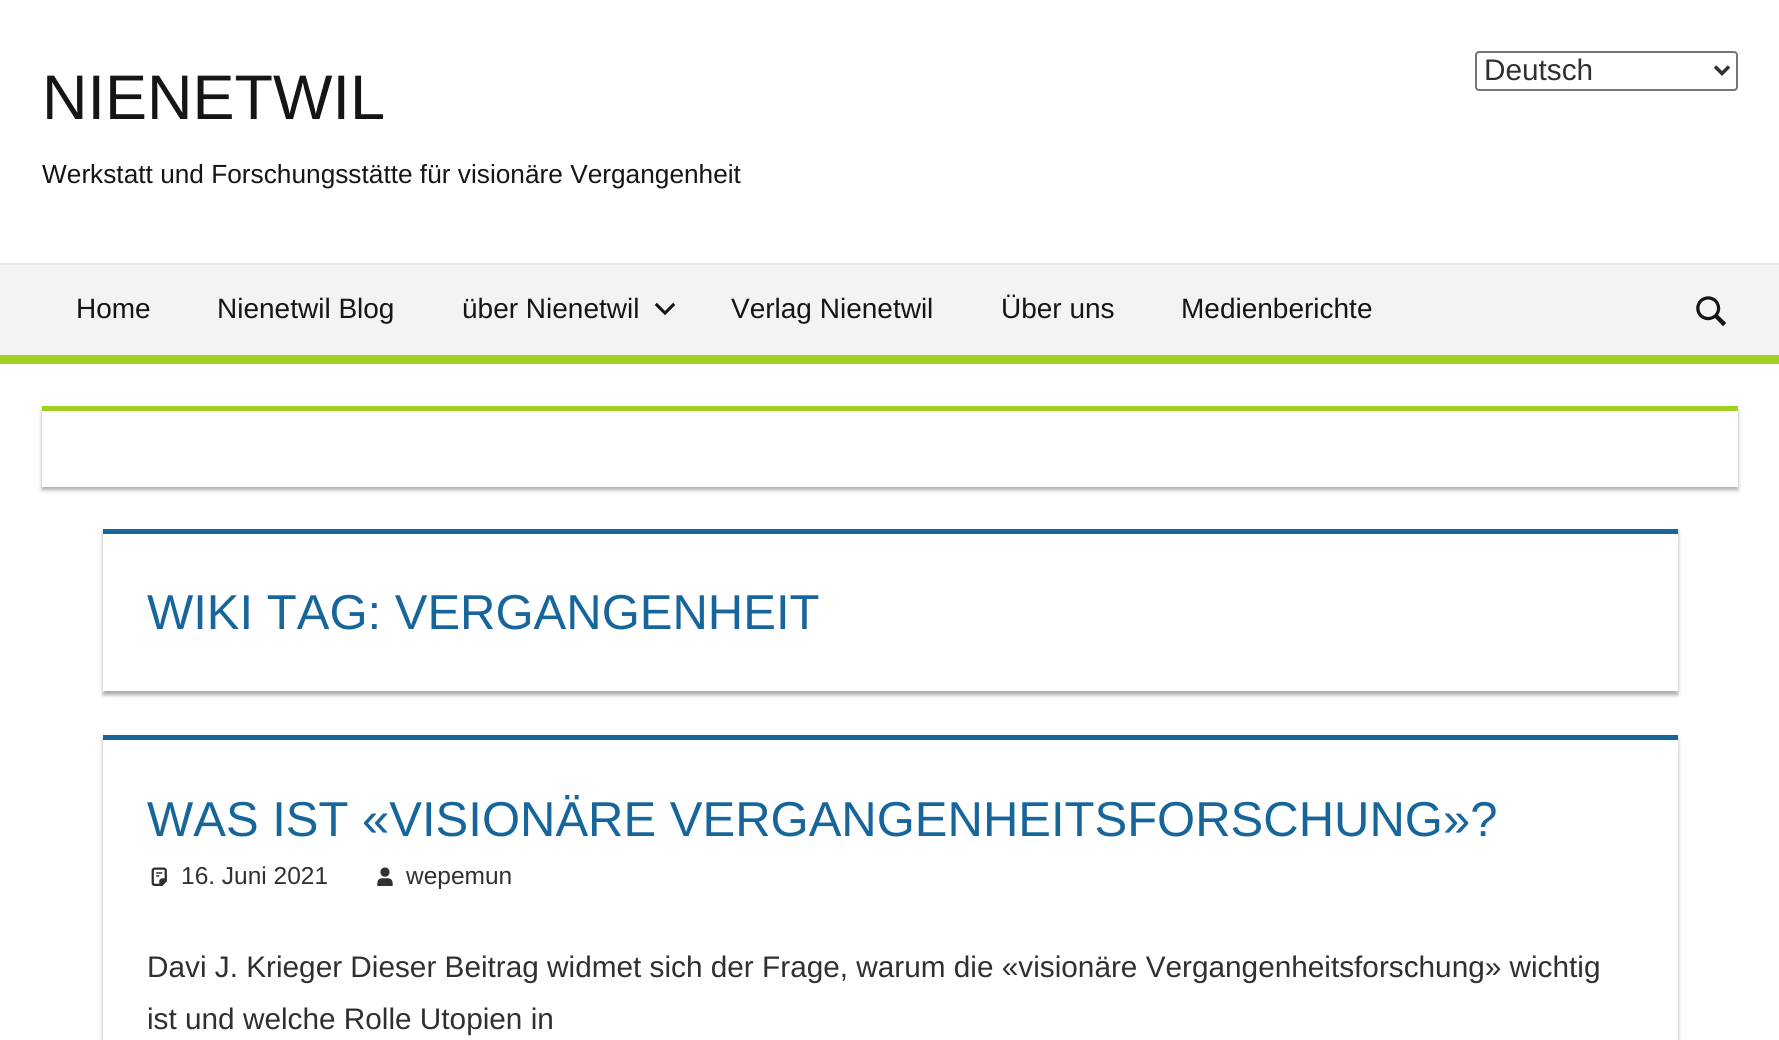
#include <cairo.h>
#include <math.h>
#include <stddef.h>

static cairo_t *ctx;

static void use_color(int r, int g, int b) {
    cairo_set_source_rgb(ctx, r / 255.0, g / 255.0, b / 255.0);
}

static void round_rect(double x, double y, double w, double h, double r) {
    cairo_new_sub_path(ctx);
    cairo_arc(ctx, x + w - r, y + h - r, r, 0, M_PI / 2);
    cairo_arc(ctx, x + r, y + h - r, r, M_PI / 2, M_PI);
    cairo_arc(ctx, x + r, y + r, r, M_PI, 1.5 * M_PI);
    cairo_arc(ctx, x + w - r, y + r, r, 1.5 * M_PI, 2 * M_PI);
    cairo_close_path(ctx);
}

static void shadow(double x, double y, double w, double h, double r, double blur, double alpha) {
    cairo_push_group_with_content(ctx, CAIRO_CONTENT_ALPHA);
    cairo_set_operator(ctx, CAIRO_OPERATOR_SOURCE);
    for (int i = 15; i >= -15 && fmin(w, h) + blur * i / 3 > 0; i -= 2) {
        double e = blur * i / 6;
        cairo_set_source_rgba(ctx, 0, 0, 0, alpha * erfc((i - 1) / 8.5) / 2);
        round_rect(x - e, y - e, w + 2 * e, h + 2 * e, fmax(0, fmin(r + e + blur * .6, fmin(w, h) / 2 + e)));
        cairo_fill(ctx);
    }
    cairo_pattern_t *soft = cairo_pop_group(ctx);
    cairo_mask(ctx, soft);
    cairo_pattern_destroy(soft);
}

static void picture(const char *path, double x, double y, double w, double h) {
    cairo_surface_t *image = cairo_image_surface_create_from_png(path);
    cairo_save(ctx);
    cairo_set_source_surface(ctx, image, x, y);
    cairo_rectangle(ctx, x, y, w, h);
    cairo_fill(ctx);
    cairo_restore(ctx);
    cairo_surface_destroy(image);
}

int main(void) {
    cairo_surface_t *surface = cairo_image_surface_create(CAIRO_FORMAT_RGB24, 1779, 1040);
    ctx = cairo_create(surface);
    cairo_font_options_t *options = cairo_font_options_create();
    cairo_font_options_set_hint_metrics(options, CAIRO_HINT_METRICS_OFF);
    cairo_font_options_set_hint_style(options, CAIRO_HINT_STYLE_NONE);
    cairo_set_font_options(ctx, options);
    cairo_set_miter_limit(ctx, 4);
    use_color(255, 255, 255);
    cairo_paint(ctx);
    round_rect(1476, 52, 261, 38, 3);
    use_color(118, 118, 118);
    cairo_stroke(ctx);
    cairo_new_path(ctx);
    cairo_move_to(ctx, 1715, 66.5);
    cairo_line_to(ctx, 1722, 73.5);
    cairo_line_to(ctx, 1729, 66.5);
    use_color(48, 48, 48);
    cairo_set_line_width(ctx, 3.5);
    cairo_stroke(ctx);
    cairo_select_font_face(ctx, "Liberation Sans", CAIRO_FONT_SLANT_NORMAL, CAIRO_FONT_WEIGHT_NORMAL);
    cairo_set_font_size(ctx, 29.75);
    cairo_move_to(ctx, 1484, 80);
    cairo_show_text(ctx, "Deutsch");
    cairo_set_font_size(ctx, 63);
    use_color(21, 21, 21);
    cairo_move_to(ctx, 42, 119);
    cairo_show_text(ctx, "NIENETWIL");
    cairo_set_font_size(ctx, 26.25);
    cairo_move_to(ctx, 42, 183);
    cairo_show_text(ctx, "Werkstatt und Forschungsstätte für visionäre Vergangenheit");
    use_color(243, 243, 243);
    cairo_rectangle(ctx, 0, 265, 1779, 90);
    cairo_fill(ctx);
    use_color(231, 231, 231);
    cairo_rectangle(ctx, 0, 263, 1779, 2);
    cairo_fill(ctx);
    use_color(161, 209, 31);
    cairo_rectangle(ctx, 0, 355, 1779, 9);
    cairo_fill(ctx);
    cairo_set_font_size(ctx, 28);
    use_color(21, 21, 21);
    cairo_move_to(ctx, 76, 318);
    cairo_show_text(ctx, "Home");
    cairo_move_to(ctx, 217, 318);
    cairo_show_text(ctx, "Nienetwil Blog");
    cairo_move_to(ctx, 462, 318);
    cairo_show_text(ctx, "über Nienetwil");
    picture("img1.png", 654, 302, 22, 14);
    cairo_move_to(ctx, 731, 318);
    cairo_show_text(ctx, "Verlag Nienetwil");
    cairo_move_to(ctx, 1001, 318);
    cairo_show_text(ctx, "Über uns");
    cairo_move_to(ctx, 1181, 318);
    cairo_show_text(ctx, "Medienberichte");
    picture("img2.png", 1696, 296, 30, 31);
    use_color(170, 170, 170);
    shadow(42, 410, 1696, 80, 0, 2, 1);
    use_color(255, 255, 255);
    cairo_rectangle(ctx, 42, 411, 1696, 76);
    cairo_fill(ctx);
    use_color(161, 209, 31);
    cairo_rectangle(ctx, 42, 406, 1696, 5);
    cairo_fill(ctx);
    use_color(170, 170, 170);
    shadow(103, 532, 1575, 163, 0, 2, 1);
    use_color(255, 255, 255);
    cairo_rectangle(ctx, 103, 534, 1575, 157);
    cairo_fill(ctx);
    use_color(23, 102, 155);
    cairo_rectangle(ctx, 103, 529, 1575, 5);
    cairo_fill(ctx);
    cairo_set_font_size(ctx, 49);
    cairo_move_to(ctx, 147, 629);
    cairo_show_text(ctx, "WIKI TAG: VERGANGENHEIT");
    use_color(170, 170, 170);
    shadow(103, 739, 1575, 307, 0, 2, 1);
    use_color(255, 255, 255);
    cairo_rectangle(ctx, 103, 740, 1575, 300);
    cairo_fill(ctx);
    use_color(23, 102, 155);
    cairo_rectangle(ctx, 103, 735, 1575, 5);
    cairo_fill(ctx);
    cairo_move_to(ctx, 147, 836);
    cairo_show_text(ctx, "WAS IST «VISIONÄRE VERGANGENHEITSFORSCHUNG»?");
    picture("img3.png", 151, 867, 16, 19);
    cairo_set_font_size(ctx, 24.5);
    use_color(48, 48, 48);
    cairo_move_to(ctx, 181, 884);
    cairo_show_text(ctx, "16. Juni 2021");
    picture("img4.png", 377, 867, 16, 19);
    cairo_move_to(ctx, 406, 884);
    cairo_show_text(ctx, "wepemun");
    cairo_set_font_size(ctx, 29.75);
    cairo_move_to(ctx, 147, 977);
    cairo_show_text(ctx, "Davi J. Krieger Dieser Beitrag widmet sich der Frage, warum die «visionäre Vergangenheitsforschung» wichtig");
    cairo_move_to(ctx, 147, 1029);
    cairo_show_text(ctx, "ist und welche Rolle Utopien in");
    cairo_surface_write_to_png(surface, "result.png");
    cairo_font_options_destroy(options);
    cairo_destroy(ctx);
    cairo_surface_destroy(surface);
    return 0;
}
